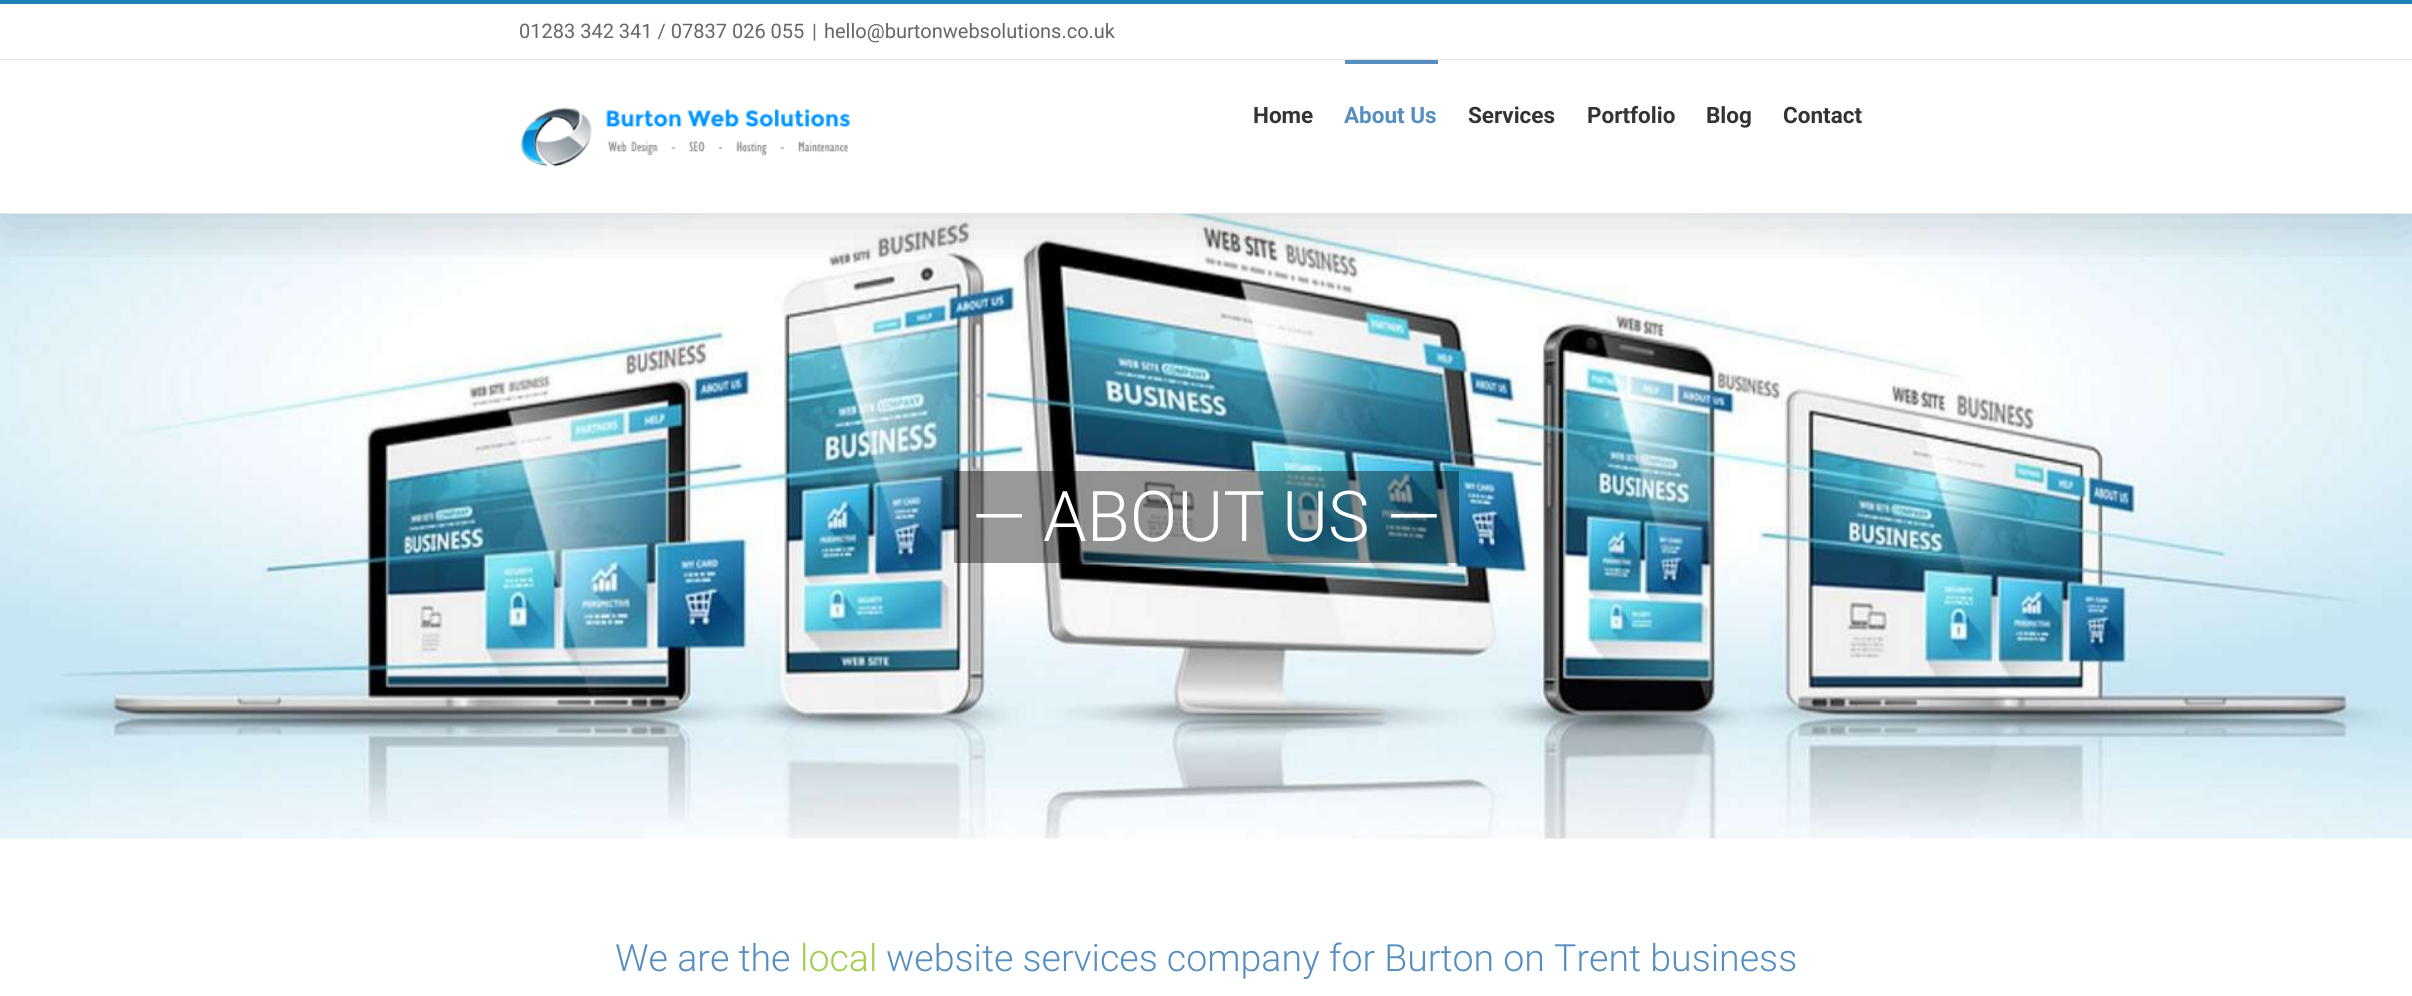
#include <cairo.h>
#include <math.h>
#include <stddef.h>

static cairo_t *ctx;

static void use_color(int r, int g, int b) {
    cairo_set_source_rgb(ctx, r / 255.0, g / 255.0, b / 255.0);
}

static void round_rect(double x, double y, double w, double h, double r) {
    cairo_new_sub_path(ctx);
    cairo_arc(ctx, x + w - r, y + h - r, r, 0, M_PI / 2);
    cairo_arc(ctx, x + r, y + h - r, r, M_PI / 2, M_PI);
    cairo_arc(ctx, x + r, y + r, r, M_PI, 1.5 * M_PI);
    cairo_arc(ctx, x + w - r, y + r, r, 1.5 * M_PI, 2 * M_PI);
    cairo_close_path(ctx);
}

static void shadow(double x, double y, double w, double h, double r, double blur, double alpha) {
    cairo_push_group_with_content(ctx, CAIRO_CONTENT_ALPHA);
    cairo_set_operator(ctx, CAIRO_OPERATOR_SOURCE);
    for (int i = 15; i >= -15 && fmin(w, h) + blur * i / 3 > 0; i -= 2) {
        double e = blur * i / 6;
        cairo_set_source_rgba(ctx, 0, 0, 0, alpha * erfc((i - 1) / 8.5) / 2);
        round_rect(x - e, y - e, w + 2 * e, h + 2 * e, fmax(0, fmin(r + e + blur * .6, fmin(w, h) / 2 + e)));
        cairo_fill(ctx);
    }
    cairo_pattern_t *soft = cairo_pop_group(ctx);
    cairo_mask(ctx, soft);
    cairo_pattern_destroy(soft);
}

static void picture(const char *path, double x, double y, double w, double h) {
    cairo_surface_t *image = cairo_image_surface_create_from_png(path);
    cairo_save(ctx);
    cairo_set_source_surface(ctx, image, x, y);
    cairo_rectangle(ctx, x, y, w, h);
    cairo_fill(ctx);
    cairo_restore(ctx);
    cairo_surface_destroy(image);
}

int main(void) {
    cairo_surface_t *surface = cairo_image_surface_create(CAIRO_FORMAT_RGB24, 2412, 996);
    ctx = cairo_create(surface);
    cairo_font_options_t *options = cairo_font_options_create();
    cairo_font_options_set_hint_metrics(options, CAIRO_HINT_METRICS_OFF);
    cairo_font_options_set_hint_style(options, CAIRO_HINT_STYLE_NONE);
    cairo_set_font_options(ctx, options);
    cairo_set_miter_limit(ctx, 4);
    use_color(255, 255, 255);
    cairo_paint(ctx);
    picture("img2.png", 0, 214, 2412, 625);
    cairo_save(ctx);
    cairo_rectangle(ctx, 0, 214, 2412, 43);
    cairo_clip(ctx);
    use_color(0, 0, 0);
    shadow(3, 15, 2407, 209, 0, 31, 0.14);
    cairo_restore(ctx);
    use_color(26, 128, 182);
    cairo_rectangle(ctx, 0, 0, 2412, 4);
    cairo_fill(ctx);
    use_color(229, 229, 229);
    cairo_rectangle(ctx, 0, 59, 2412, 1);
    cairo_fill(ctx);
    cairo_select_font_face(ctx, "Roboto", CAIRO_FONT_SLANT_NORMAL, CAIRO_FONT_WEIGHT_NORMAL);
    cairo_set_font_size(ctx, 20);
    use_color(102, 102, 102);
    cairo_move_to(ctx, 519, 38);
    cairo_show_text(ctx, "01283 342 341 / 07837 026 055");
    cairo_move_to(ctx, 812, 38);
    cairo_show_text(ctx, "|");
    cairo_move_to(ctx, 824, 38);
    cairo_show_text(ctx, "hello@burtonwebsolutions.co.uk");
    use_color(229, 229, 229);
    cairo_rectangle(ctx, 0, 213, 2412, 1);
    cairo_fill(ctx);
    picture("img1.png", 520, 107, 331, 60);
    cairo_select_font_face(ctx, "Roboto", CAIRO_FONT_SLANT_NORMAL, CAIRO_FONT_WEIGHT_BOLD);
    cairo_set_font_size(ctx, 22.5);
    use_color(51, 51, 51);
    cairo_move_to(ctx, 1253, 123);
    cairo_show_text(ctx, "Home");
    use_color(86, 142, 191);
    cairo_rectangle(ctx, 1345, 60, 93, 4);
    cairo_fill(ctx);
    cairo_move_to(ctx, 1344, 123);
    cairo_show_text(ctx, "About Us");
    use_color(51, 51, 51);
    cairo_move_to(ctx, 1468, 123);
    cairo_show_text(ctx, "Services");
    cairo_move_to(ctx, 1587, 123);
    cairo_show_text(ctx, "Portfolio");
    cairo_move_to(ctx, 1706, 123);
    cairo_show_text(ctx, "Blog");
    cairo_move_to(ctx, 1783, 123);
    cairo_show_text(ctx, "Contact");
    cairo_set_source_rgba(ctx, 0, 0, 0, 0.4);
    cairo_rectangle(ctx, 954, 471, 505, 92);
    cairo_fill(ctx);
    cairo_select_font_face(ctx, "Roboto Light", CAIRO_FONT_SLANT_NORMAL, CAIRO_FONT_WEIGHT_NORMAL);
    cairo_set_font_size(ctx, 70);
    use_color(255, 255, 255);
    cairo_move_to(ctx, 972, 541);
    cairo_show_text(ctx, "— ABOUT US —");
    cairo_set_font_size(ctx, 37.5);
    use_color(86, 142, 191);
    cairo_move_to(ctx, 615, 971);
    cairo_show_text(ctx, "We are the");
    use_color(160, 206, 78);
    cairo_move_to(ctx, 800, 971);
    cairo_show_text(ctx, "local");
    use_color(86, 142, 191);
    cairo_move_to(ctx, 886, 971);
    cairo_show_text(ctx, "website services company for Burton on Trent business");
    cairo_surface_write_to_png(surface, "result.png");
    cairo_font_options_destroy(options);
    cairo_destroy(ctx);
    cairo_surface_destroy(surface);
    return 0;
}
